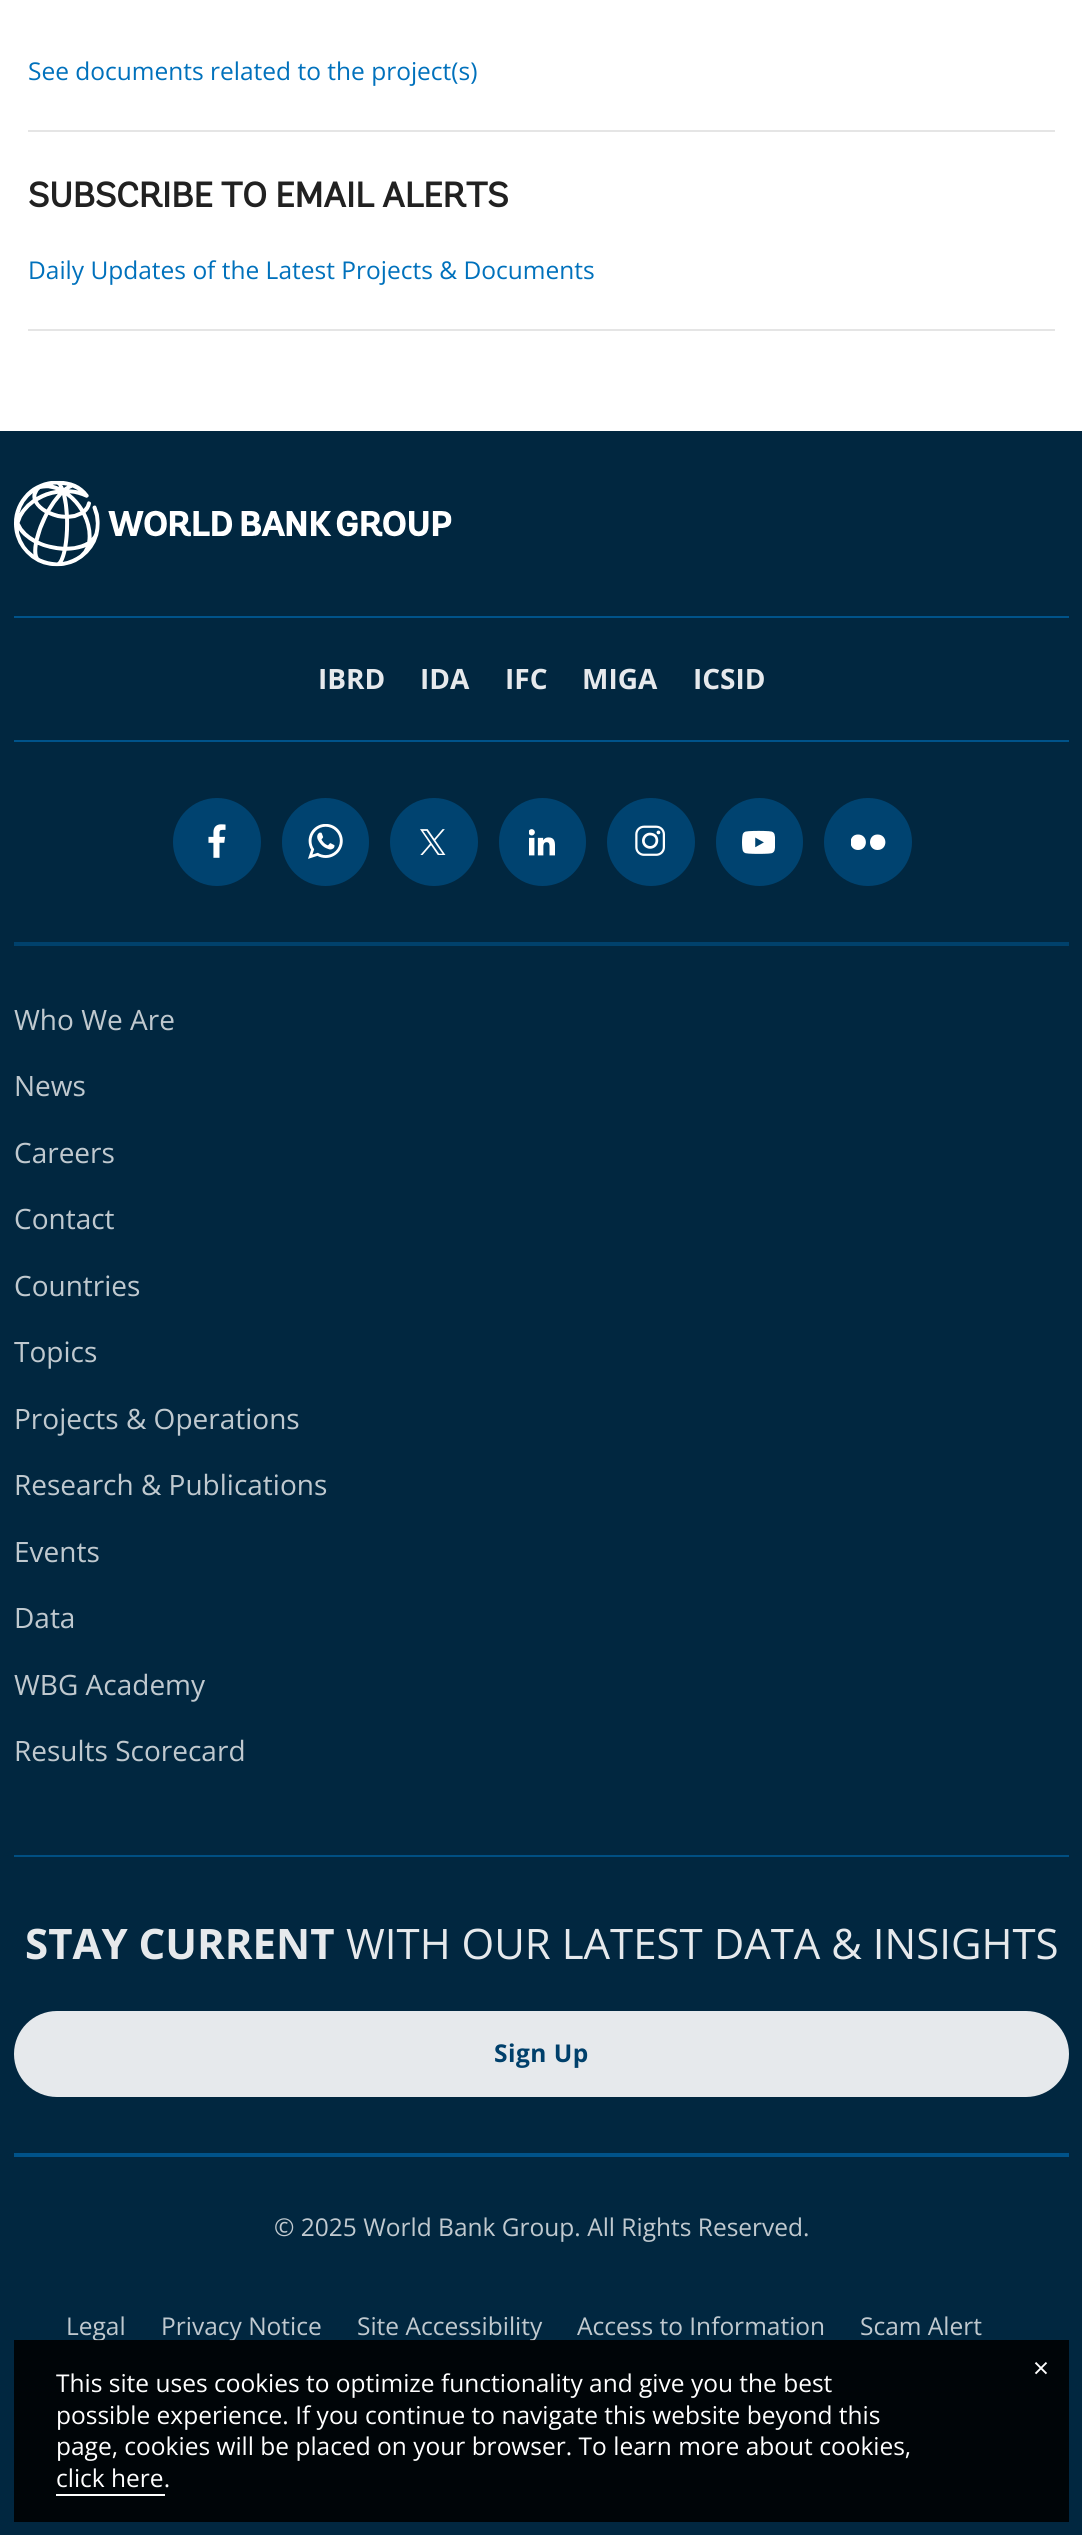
#include <cairo.h>
#include <math.h>
#include <stddef.h>

static cairo_t *ctx;

static void use_color(int r, int g, int b) {
    cairo_set_source_rgb(ctx, r / 255.0, g / 255.0, b / 255.0);
}

static void spaced_text(double x, double y, const char *s, double letter, double word) {
    cairo_move_to(ctx, x, y);
    while (*s) {
        char ch[5] = {0};
        int n = 0;
        do ch[n++] = *s++; while ((*s & 0xC0) == 0x80);
        cairo_show_text(ctx, ch);
        cairo_rel_move_to(ctx, letter + word * (*ch == ' '), 0);
    }
}

static void round_rect(double x, double y, double w, double h, double r) {
    cairo_new_sub_path(ctx);
    cairo_arc(ctx, x + w - r, y + h - r, r, 0, M_PI / 2);
    cairo_arc(ctx, x + r, y + h - r, r, M_PI / 2, M_PI);
    cairo_arc(ctx, x + r, y + r, r, M_PI, 1.5 * M_PI);
    cairo_arc(ctx, x + w - r, y + r, r, 1.5 * M_PI, 2 * M_PI);
    cairo_close_path(ctx);
}

static void picture(const char *path, double x, double y, double w, double h) {
    cairo_surface_t *image = cairo_image_surface_create_from_png(path);
    cairo_save(ctx);
    cairo_set_source_surface(ctx, image, x, y);
    cairo_rectangle(ctx, x, y, w, h);
    cairo_fill(ctx);
    cairo_restore(ctx);
    cairo_surface_destroy(image);
}

int main(void) {
    cairo_surface_t *surface = cairo_image_surface_create(CAIRO_FORMAT_RGB24, 1082, 2535);
    ctx = cairo_create(surface);
    cairo_font_options_t *options = cairo_font_options_create();
    cairo_font_options_set_hint_metrics(options, CAIRO_HINT_METRICS_OFF);
    cairo_font_options_set_hint_style(options, CAIRO_HINT_STYLE_NONE);
    cairo_set_font_options(ctx, options);
    cairo_set_miter_limit(ctx, 4);
    use_color(255, 255, 255);
    cairo_paint(ctx);
    cairo_select_font_face(ctx, "Open Sans", CAIRO_FONT_SLANT_NORMAL, CAIRO_FONT_WEIGHT_NORMAL);
    cairo_set_font_size(ctx, 24.5);
    use_color(0, 113, 188);
    cairo_move_to(ctx, 28, 80);
    cairo_show_text(ctx, "See documents related to the project(s)");
    use_color(229, 229, 229);
    cairo_rectangle(ctx, 28, 130, 1027, 2);
    cairo_fill(ctx);
    cairo_select_font_face(ctx, "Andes", CAIRO_FONT_SLANT_NORMAL, CAIRO_FONT_WEIGHT_BOLD);
    cairo_set_font_size(ctx, 35);
    use_color(33, 33, 33);
    cairo_move_to(ctx, 28, 207);
    cairo_show_text(ctx, "SUBSCRIBE TO EMAIL ALERTS");
    cairo_select_font_face(ctx, "Open Sans", CAIRO_FONT_SLANT_NORMAL, CAIRO_FONT_WEIGHT_NORMAL);
    cairo_set_font_size(ctx, 24.5);
    use_color(0, 113, 188);
    cairo_move_to(ctx, 28, 279);
    cairo_show_text(ctx, "Daily Updates of the Latest Projects & Documents");
    use_color(229, 229, 229);
    cairo_rectangle(ctx, 28, 329, 1027, 2);
    cairo_fill(ctx);
    use_color(1, 39, 64);
    cairo_rectangle(ctx, 0, 431, 1082, 2104);
    cairo_fill(ctx);
    use_color(0, 65, 108);
    cairo_rectangle(ctx, 14, 942, 1055, 4);
    cairo_fill(ctx);
    use_color(0, 83, 138);
    cairo_rectangle(ctx, 14, 616, 1055, 2);
    cairo_fill(ctx);
    picture("img1.png", 14, 480, 438, 87);
    cairo_select_font_face(ctx, "Open Sans", CAIRO_FONT_SLANT_NORMAL, CAIRO_FONT_WEIGHT_BOLD);
    cairo_set_font_size(ctx, 28);
    use_color(230, 233, 236);
    cairo_move_to(ctx, 318, 689);
    cairo_show_text(ctx, "IBRD");
    cairo_move_to(ctx, 420, 689);
    cairo_show_text(ctx, "IDA");
    cairo_move_to(ctx, 505, 689);
    cairo_show_text(ctx, "IFC");
    cairo_move_to(ctx, 582, 689);
    cairo_show_text(ctx, "MIGA");
    cairo_move_to(ctx, 693, 689);
    cairo_show_text(ctx, "ICSID");
    use_color(0, 83, 138);
    cairo_rectangle(ctx, 14, 740, 1055, 2);
    cairo_fill(ctx);
    use_color(0, 67, 112);
    cairo_arc(ctx, 217, 842, 44, 0, 2 * M_PI);
    cairo_fill(ctx);
    picture("img2.png", 208, 824, 18, 34);
    round_rect(282, 798, 87, 88, 43.5);
    cairo_fill(ctx);
    picture("img3.png", 308, 824, 35, 35);
    cairo_arc(ctx, 434, 842, 44, 0, 2 * M_PI);
    cairo_fill(ctx);
    picture("img4.png", 420, 829, 26, 26);
    round_rect(499, 798, 87, 88, 43.5);
    cairo_fill(ctx);
    picture("img5.png", 529, 829, 26, 27);
    cairo_arc(ctx, 651, 842, 44, 0, 2 * M_PI);
    cairo_fill(ctx);
    picture("img6.png", 635, 825, 30, 31);
    round_rect(716, 798, 87, 88, 43.5);
    cairo_fill(ctx);
    picture("img7.png", 742, 830, 33, 24);
    cairo_arc(ctx, 868, 842, 44, 0, 2 * M_PI);
    cairo_fill(ctx);
    cairo_save(ctx);
    cairo_rectangle(ctx, 851, 833, 35, 18);
    cairo_clip(ctx);
    use_color(255, 255, 255);
    cairo_new_path(ctx);
    cairo_move_to(ctx, 858, 834.5);
    cairo_curve_to(ctx, 848, 834.5, 848, 850, 858, 850);
    cairo_curve_to(ctx, 868.5, 850, 868.5, 834.5, 858, 834.5);
    cairo_close_path(ctx);
    cairo_move_to(ctx, 877.5, 834.5);
    cairo_curve_to(ctx, 867.5, 834.5, 867.5, 850, 877.5, 850);
    cairo_curve_to(ctx, 888, 850, 888, 834.5, 877.5, 834.5);
    cairo_close_path(ctx);
    cairo_fill(ctx);
    cairo_restore(ctx);
    cairo_select_font_face(ctx, "Open Sans", CAIRO_FONT_SLANT_NORMAL, CAIRO_FONT_WEIGHT_NORMAL);
    use_color(192, 201, 207);
    cairo_move_to(ctx, 14, 1030);
    cairo_show_text(ctx, "Who We Are");
    cairo_move_to(ctx, 14, 1096);
    cairo_show_text(ctx, "News");
    cairo_move_to(ctx, 14, 1163);
    cairo_show_text(ctx, "Careers");
    cairo_move_to(ctx, 14, 1229);
    cairo_show_text(ctx, "Contact");
    cairo_move_to(ctx, 14, 1296);
    cairo_show_text(ctx, "Countries");
    cairo_move_to(ctx, 14, 1362);
    cairo_show_text(ctx, "Topics");
    cairo_move_to(ctx, 14, 1429);
    cairo_show_text(ctx, "Projects & Operations");
    cairo_move_to(ctx, 14, 1495);
    cairo_show_text(ctx, "Research & Publications");
    cairo_move_to(ctx, 14, 1562);
    cairo_show_text(ctx, "Events");
    cairo_move_to(ctx, 14, 1628);
    cairo_show_text(ctx, "Data");
    cairo_move_to(ctx, 14, 1695);
    cairo_show_text(ctx, "WBG Academy");
    cairo_move_to(ctx, 14, 1761);
    cairo_show_text(ctx, "Results Scorecard");
    use_color(0, 79, 131);
    cairo_rectangle(ctx, 14, 1855, 1055, 2);
    cairo_fill(ctx);
    cairo_select_font_face(ctx, "Open Sans", CAIRO_FONT_SLANT_NORMAL, CAIRO_FONT_WEIGHT_BOLD);
    cairo_set_font_size(ctx, 42);
    use_color(230, 233, 236);
    cairo_move_to(ctx, 25, 1959);
    cairo_show_text(ctx, "STAY CURRENT");
    cairo_select_font_face(ctx, "Open Sans", CAIRO_FONT_SLANT_NORMAL, CAIRO_FONT_WEIGHT_NORMAL);
    cairo_move_to(ctx, 346, 1959);
    cairo_show_text(ctx, "WITH OUR LATEST DATA & INSIGHTS");
    round_rect(14, 2011, 1055, 86, 43);
    cairo_fill(ctx);
    cairo_select_font_face(ctx, "Open Sans", CAIRO_FONT_SLANT_NORMAL, CAIRO_FONT_WEIGHT_BOLD);
    cairo_set_font_size(ctx, 24.5);
    use_color(0, 64, 107);
    spaced_text(494, 2062, "Sign Up", 0.5, 0);
    use_color(0, 83, 138);
    cairo_rectangle(ctx, 14, 2153, 1055, 4);
    cairo_fill(ctx);
    cairo_select_font_face(ctx, "Open Sans", CAIRO_FONT_SLANT_NORMAL, CAIRO_FONT_WEIGHT_NORMAL);
    use_color(192, 201, 207);
    cairo_move_to(ctx, 274, 2236);
    cairo_show_text(ctx, "© 2025 World Bank Group. All Rights Reserved.");
    cairo_move_to(ctx, 66, 2335);
    cairo_show_text(ctx, "Legal");
    cairo_move_to(ctx, 161, 2335);
    cairo_show_text(ctx, "Privacy Notice");
    cairo_move_to(ctx, 357, 2335);
    cairo_show_text(ctx, "Site Accessibility");
    cairo_move_to(ctx, 577, 2335);
    cairo_show_text(ctx, "Access to Information");
    cairo_move_to(ctx, 860, 2335);
    cairo_show_text(ctx, "Scam Alert");
    cairo_set_source_rgba(ctx, 0, 0, 0, 0.87);
    cairo_rectangle(ctx, 14, 2340, 1055, 182);
    cairo_fill(ctx);
    cairo_set_font_size(ctx, 28);
    use_color(255, 255, 255);
    cairo_move_to(ctx, 1033, 2378);
    cairo_show_text(ctx, "×");
    cairo_set_font_size(ctx, 24.5);
    cairo_move_to(ctx, 56, 2392);
    cairo_show_text(ctx, "This site uses cookies to optimize functionality and give you the best");
    cairo_move_to(ctx, 56, 2424);
    cairo_show_text(ctx, "possible experience. If you continue to navigate this website beyond this");
    cairo_move_to(ctx, 56, 2455);
    cairo_show_text(ctx, "page, cookies will be placed on your browser. To learn more about cookies,");
    cairo_move_to(ctx, 56, 2487);
    cairo_show_text(ctx, "click here.");
    cairo_rectangle(ctx, 56, 2494, 109, 2);
    cairo_fill(ctx);
    cairo_surface_write_to_png(surface, "result.png");
    cairo_font_options_destroy(options);
    cairo_destroy(ctx);
    cairo_surface_destroy(surface);
    return 0;
}
